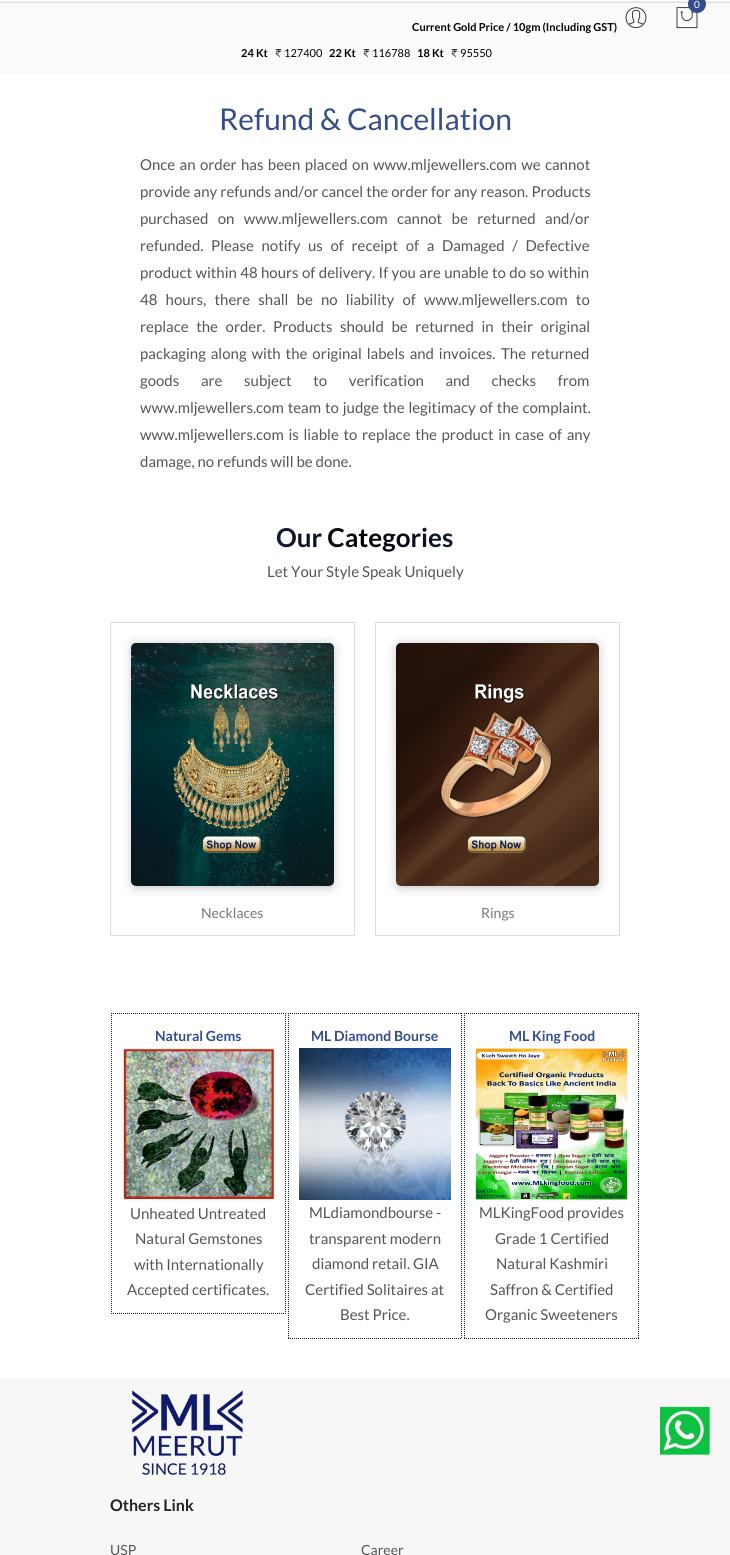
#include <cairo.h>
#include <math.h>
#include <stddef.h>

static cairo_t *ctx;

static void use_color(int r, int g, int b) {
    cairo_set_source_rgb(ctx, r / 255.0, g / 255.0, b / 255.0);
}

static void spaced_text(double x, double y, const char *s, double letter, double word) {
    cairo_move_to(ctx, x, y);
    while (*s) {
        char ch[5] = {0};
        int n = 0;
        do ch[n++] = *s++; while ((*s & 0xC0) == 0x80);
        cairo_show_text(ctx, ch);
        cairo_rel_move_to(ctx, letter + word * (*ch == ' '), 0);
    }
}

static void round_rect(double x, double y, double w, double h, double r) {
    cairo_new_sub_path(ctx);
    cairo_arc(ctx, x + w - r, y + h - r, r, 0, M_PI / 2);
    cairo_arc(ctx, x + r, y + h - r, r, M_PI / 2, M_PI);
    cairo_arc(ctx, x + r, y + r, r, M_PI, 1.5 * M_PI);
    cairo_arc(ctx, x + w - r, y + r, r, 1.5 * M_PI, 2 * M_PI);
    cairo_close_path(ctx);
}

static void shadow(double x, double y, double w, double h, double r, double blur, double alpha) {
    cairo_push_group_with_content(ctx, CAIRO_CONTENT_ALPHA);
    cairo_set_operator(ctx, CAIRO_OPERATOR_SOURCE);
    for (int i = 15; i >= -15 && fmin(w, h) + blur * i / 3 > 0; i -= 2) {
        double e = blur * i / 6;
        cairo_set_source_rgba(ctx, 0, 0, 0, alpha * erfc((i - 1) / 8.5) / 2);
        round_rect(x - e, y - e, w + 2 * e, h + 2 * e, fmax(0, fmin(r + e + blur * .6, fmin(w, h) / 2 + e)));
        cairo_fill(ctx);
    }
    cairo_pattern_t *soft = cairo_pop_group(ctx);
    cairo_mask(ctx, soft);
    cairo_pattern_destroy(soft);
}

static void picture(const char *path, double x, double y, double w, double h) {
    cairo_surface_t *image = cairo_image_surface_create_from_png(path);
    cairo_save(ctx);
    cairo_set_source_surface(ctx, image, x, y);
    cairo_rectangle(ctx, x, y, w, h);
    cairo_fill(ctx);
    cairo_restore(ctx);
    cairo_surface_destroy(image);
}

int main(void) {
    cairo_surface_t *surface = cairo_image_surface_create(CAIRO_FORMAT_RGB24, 730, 1555);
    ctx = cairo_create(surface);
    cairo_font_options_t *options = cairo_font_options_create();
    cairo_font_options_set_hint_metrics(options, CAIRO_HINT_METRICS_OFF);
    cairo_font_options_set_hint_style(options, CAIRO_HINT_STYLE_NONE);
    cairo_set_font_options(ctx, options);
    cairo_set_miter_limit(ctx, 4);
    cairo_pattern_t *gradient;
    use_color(255, 255, 255);
    cairo_paint(ctx);
    use_color(251, 251, 251);
    cairo_rectangle(ctx, 0, 3, 730, 71);
    cairo_fill(ctx);
    picture("img1.png", 676, 7, 22, 22);
    use_color(239, 239, 239);
    cairo_rectangle(ctx, 0, 1, 730, 1);
    cairo_fill(ctx);
    use_color(221, 221, 221);
    cairo_rectangle(ctx, 0, 2, 730, 1);
    cairo_fill(ctx);
    use_color(52, 78, 139);
    cairo_arc(ctx, 697, 4, 9, 0, 2 * M_PI);
    cairo_fill(ctx);
    cairo_select_font_face(ctx, "Lato", CAIRO_FONT_SLANT_NORMAL, CAIRO_FONT_WEIGHT_NORMAL);
    cairo_set_font_size(ctx, 10);
    use_color(255, 255, 255);
    cairo_move_to(ctx, 694, 8);
    cairo_show_text(ctx, "0");
    picture("img2.png", 625, 7, 22, 21);
    cairo_select_font_face(ctx, "Lato", CAIRO_FONT_SLANT_NORMAL, CAIRO_FONT_WEIGHT_BOLD);
    cairo_set_font_size(ctx, 11);
    use_color(0, 0, 0);
    cairo_move_to(ctx, 412, 31);
    cairo_show_text(ctx, "Current Gold Price / 10gm (Including GST)");
    cairo_move_to(ctx, 241, 57);
    cairo_show_text(ctx, "24 Kt");
    picture("img3.png", 275, 49, 7, 8);
    cairo_select_font_face(ctx, "Lato", CAIRO_FONT_SLANT_NORMAL, CAIRO_FONT_WEIGHT_NORMAL);
    cairo_move_to(ctx, 284, 57);
    cairo_show_text(ctx, "127400");
    cairo_select_font_face(ctx, "Lato", CAIRO_FONT_SLANT_NORMAL, CAIRO_FONT_WEIGHT_BOLD);
    cairo_move_to(ctx, 329, 57);
    cairo_show_text(ctx, "22 Kt");
    picture("img3.png", 363, 49, 7, 8);
    cairo_select_font_face(ctx, "Lato", CAIRO_FONT_SLANT_NORMAL, CAIRO_FONT_WEIGHT_NORMAL);
    cairo_move_to(ctx, 372, 57);
    cairo_show_text(ctx, "116788");
    cairo_select_font_face(ctx, "Lato", CAIRO_FONT_SLANT_NORMAL, CAIRO_FONT_WEIGHT_BOLD);
    cairo_move_to(ctx, 417, 57);
    cairo_show_text(ctx, "18 Kt");
    picture("img3.png", 451, 49, 7, 8);
    cairo_select_font_face(ctx, "Lato", CAIRO_FONT_SLANT_NORMAL, CAIRO_FONT_WEIGHT_NORMAL);
    cairo_move_to(ctx, 460, 57);
    cairo_show_text(ctx, "95550");
    cairo_set_font_size(ctx, 30);
    use_color(52, 78, 139);
    cairo_move_to(ctx, 219, 130);
    cairo_show_text(ctx, "Refund & Cancellation");
    cairo_set_font_size(ctx, 15);
    use_color(85, 85, 85);
    spaced_text(140, 170, "Once an order has been placed on www.mljewellers.com we cannot", 0, 1.5);
    spaced_text(140, 197, "provide any refunds and/or cancel the order for any reason. Products", 0, 0.25);
    spaced_text(140, 224, "purchased on www.mljewellers.com cannot be returned and/or", 0, 6.5);
    cairo_move_to(ctx, 140, 251);
    cairo_show_text(ctx, "refunded.");
    spaced_text(211, 251, "Please notify us of receipt of a Damaged / Defective", 0, 4.75);
    spaced_text(140, 278, "product within 48 hours of delivery. If you are unable to do so within", 0, 0.5);
    spaced_text(140, 305, "48 hours, there shall be no liability of www.mljewellers.com to", 0, 5.25);
    spaced_text(140, 332, "replace the order.", 0, 4.75);
    spaced_text(273, 332, "Products should be returned in their original", 0, 4.75);
    spaced_text(140, 359, "packaging along with the original labels and invoices.", 0, 2);
    spaced_text(501, 359, "The returned", 0, 2);
    spaced_text(140, 386, "goods are subject to verification and checks from", 0, 18.75);
    spaced_text(140, 413, "www.mljewellers.com team to judge the legitimacy of the complaint.", 0, 1);
    spaced_text(140, 440, "www.mljewellers.com is liable to replace the product in case of any", 0, 1.75);
    cairo_move_to(ctx, 140, 467);
    cairo_show_text(ctx, "damage, no refunds will be done.");
    cairo_select_font_face(ctx, "Lato", CAIRO_FONT_SLANT_NORMAL, CAIRO_FONT_WEIGHT_BOLD);
    cairo_set_font_size(ctx, 26);
    gradient = cairo_pattern_create_linear(110, 538, 620, 538);
    cairo_pattern_add_color_stop_rgba(gradient, 0, 0.204, 0.306, 0.545, 1);
    cairo_pattern_add_color_stop_rgba(gradient, 0.5, 0, 0, 0, 1);
    cairo_pattern_add_color_stop_rgba(gradient, 1, 0.204, 0.306, 0.545, 1);
    cairo_set_source(ctx, gradient);
    cairo_pattern_destroy(gradient);
    cairo_move_to(ctx, 276, 547);
    cairo_show_text(ctx, "Our Categories");
    cairo_select_font_face(ctx, "Lato", CAIRO_FONT_SLANT_NORMAL, CAIRO_FONT_WEIGHT_NORMAL);
    cairo_set_font_size(ctx, 15);
    use_color(85, 85, 85);
    cairo_move_to(ctx, 267, 577);
    cairo_show_text(ctx, "Let Your Style Speak Uniquely");
    cairo_rectangle(ctx, 110.5, 622.5, 244, 313);
    use_color(221, 221, 221);
    cairo_set_line_width(ctx, 1);
    cairo_stroke(ctx);
    use_color(204, 204, 204);
    shadow(131, 643, 203, 245, 5, 5, 1);
    use_color(221, 221, 221);
    cairo_rectangle(ctx, 134, 886, 198, 2);
    cairo_fill(ctx);
    picture("img4.png", 131, 643, 203, 243);
    cairo_set_font_size(ctx, 14);
    use_color(119, 119, 119);
    cairo_move_to(ctx, 201, 918);
    cairo_show_text(ctx, "Necklaces");
    cairo_rectangle(ctx, 375.5, 622.5, 244, 313);
    use_color(221, 221, 221);
    cairo_stroke(ctx);
    use_color(204, 204, 204);
    shadow(396, 643, 203, 245, 5, 5, 1);
    use_color(221, 221, 221);
    cairo_rectangle(ctx, 399, 886, 198, 2);
    cairo_fill(ctx);
    picture("img5.png", 396, 643, 203, 243);
    use_color(119, 119, 119);
    cairo_move_to(ctx, 481, 918);
    cairo_show_text(ctx, "Rings");
    cairo_new_path(ctx);
    cairo_move_to(ctx, 111, 1013.5);
    cairo_line_to(ctx, 286, 1013.5);
    use_color(5, 36, 67);
    cairo_set_dash(ctx, (double[]){1, 1}, 2, 0);
    cairo_stroke(ctx);
    cairo_new_path(ctx);
    cairo_move_to(ctx, 285.5, 1013);
    cairo_line_to(ctx, 285.5, 1314);
    cairo_stroke(ctx);
    cairo_new_path(ctx);
    cairo_move_to(ctx, 111, 1313.5);
    cairo_line_to(ctx, 286, 1313.5);
    cairo_stroke(ctx);
    cairo_new_path(ctx);
    cairo_move_to(ctx, 111.5, 1013);
    cairo_line_to(ctx, 111.5, 1314);
    cairo_stroke(ctx);
    cairo_select_font_face(ctx, "Lato", CAIRO_FONT_SLANT_NORMAL, CAIRO_FONT_WEIGHT_BOLD);
    use_color(52, 78, 139);
    cairo_move_to(ctx, 155, 1041);
    cairo_show_text(ctx, "Natural Gems");
    picture("img6.png", 122, 1048, 153, 153);
    cairo_select_font_face(ctx, "Lato", CAIRO_FONT_SLANT_NORMAL, CAIRO_FONT_WEIGHT_NORMAL);
    cairo_set_font_size(ctx, 15);
    use_color(85, 85, 85);
    cairo_move_to(ctx, 130, 1219);
    cairo_show_text(ctx, "Unheated Untreated");
    cairo_move_to(ctx, 135, 1244);
    cairo_show_text(ctx, "Natural Gemstones");
    cairo_move_to(ctx, 134, 1270);
    cairo_show_text(ctx, "with Internationally");
    cairo_move_to(ctx, 127, 1295);
    cairo_show_text(ctx, "Accepted certificates.");
    cairo_new_path(ctx);
    cairo_move_to(ctx, 288, 1013.5);
    cairo_line_to(ctx, 462, 1013.5);
    use_color(5, 36, 67);
    cairo_stroke(ctx);
    cairo_new_path(ctx);
    cairo_move_to(ctx, 461.5, 1013);
    cairo_line_to(ctx, 461.5, 1339);
    cairo_stroke(ctx);
    cairo_new_path(ctx);
    cairo_move_to(ctx, 288, 1338.5);
    cairo_line_to(ctx, 462, 1338.5);
    cairo_stroke(ctx);
    cairo_new_path(ctx);
    cairo_move_to(ctx, 288.5, 1013);
    cairo_line_to(ctx, 288.5, 1339);
    cairo_stroke(ctx);
    cairo_select_font_face(ctx, "Lato", CAIRO_FONT_SLANT_NORMAL, CAIRO_FONT_WEIGHT_BOLD);
    cairo_set_font_size(ctx, 14);
    use_color(52, 78, 139);
    cairo_move_to(ctx, 311, 1041);
    cairo_show_text(ctx, "ML Diamond Bourse");
    picture("img7.png", 299, 1048, 152, 152);
    cairo_select_font_face(ctx, "Lato", CAIRO_FONT_SLANT_NORMAL, CAIRO_FONT_WEIGHT_NORMAL);
    cairo_set_font_size(ctx, 15);
    use_color(85, 85, 85);
    cairo_move_to(ctx, 309, 1218);
    cairo_show_text(ctx, "MLdiamondbourse -");
    cairo_move_to(ctx, 309, 1244);
    cairo_show_text(ctx, "transparent modern");
    cairo_move_to(ctx, 312, 1269);
    cairo_show_text(ctx, "diamond retail. GIA");
    cairo_move_to(ctx, 305, 1295);
    cairo_show_text(ctx, "Certified Solitaires at");
    cairo_move_to(ctx, 340, 1320);
    cairo_show_text(ctx, "Best Price.");
    cairo_new_path(ctx);
    cairo_move_to(ctx, 464, 1013.5);
    cairo_line_to(ctx, 639, 1013.5);
    use_color(5, 36, 67);
    cairo_stroke(ctx);
    cairo_new_path(ctx);
    cairo_move_to(ctx, 638.5, 1013);
    cairo_line_to(ctx, 638.5, 1339);
    cairo_stroke(ctx);
    cairo_new_path(ctx);
    cairo_move_to(ctx, 464, 1338.5);
    cairo_line_to(ctx, 639, 1338.5);
    cairo_stroke(ctx);
    cairo_new_path(ctx);
    cairo_move_to(ctx, 464.5, 1013);
    cairo_line_to(ctx, 464.5, 1339);
    cairo_stroke(ctx);
    cairo_select_font_face(ctx, "Lato", CAIRO_FONT_SLANT_NORMAL, CAIRO_FONT_WEIGHT_BOLD);
    cairo_set_font_size(ctx, 14);
    use_color(52, 78, 139);
    cairo_move_to(ctx, 509, 1041);
    cairo_show_text(ctx, "ML King Food");
    picture("img8.png", 475, 1048, 153, 152);
    cairo_select_font_face(ctx, "Lato", CAIRO_FONT_SLANT_NORMAL, CAIRO_FONT_WEIGHT_NORMAL);
    cairo_set_font_size(ctx, 15);
    use_color(85, 85, 85);
    cairo_move_to(ctx, 479, 1218);
    cairo_show_text(ctx, "MLKingFood provides");
    cairo_move_to(ctx, 495, 1244);
    cairo_show_text(ctx, "Grade 1 Certified");
    cairo_move_to(ctx, 496, 1269);
    cairo_show_text(ctx, "Natural Kashmiri");
    cairo_move_to(ctx, 490, 1295);
    cairo_show_text(ctx, "Saffron & Certified");
    cairo_move_to(ctx, 485, 1320);
    cairo_show_text(ctx, "Organic Sweeteners");
    use_color(247, 247, 247);
    cairo_rectangle(ctx, 0, 1379, 730, 176);
    cairo_fill(ctx);
    picture("img9.png", 660, 1406, 50, 49);
    picture("img10.png", 132, 1390, 111, 85);
    cairo_select_font_face(ctx, "Lato", CAIRO_FONT_SLANT_NORMAL, CAIRO_FONT_WEIGHT_BOLD);
    cairo_set_font_size(ctx, 16);
    use_color(34, 34, 34);
    cairo_move_to(ctx, 110, 1511);
    cairo_show_text(ctx, "Others Link");
    cairo_select_font_face(ctx, "Lato", CAIRO_FONT_SLANT_NORMAL, CAIRO_FONT_WEIGHT_NORMAL);
    cairo_set_font_size(ctx, 14);
    use_color(85, 85, 85);
    cairo_move_to(ctx, 110, 1555);
    cairo_show_text(ctx, "USP");
    cairo_move_to(ctx, 361, 1555);
    cairo_show_text(ctx, "Career");
    cairo_surface_write_to_png(surface, "result.png");
    cairo_font_options_destroy(options);
    cairo_destroy(ctx);
    cairo_surface_destroy(surface);
    return 0;
}
